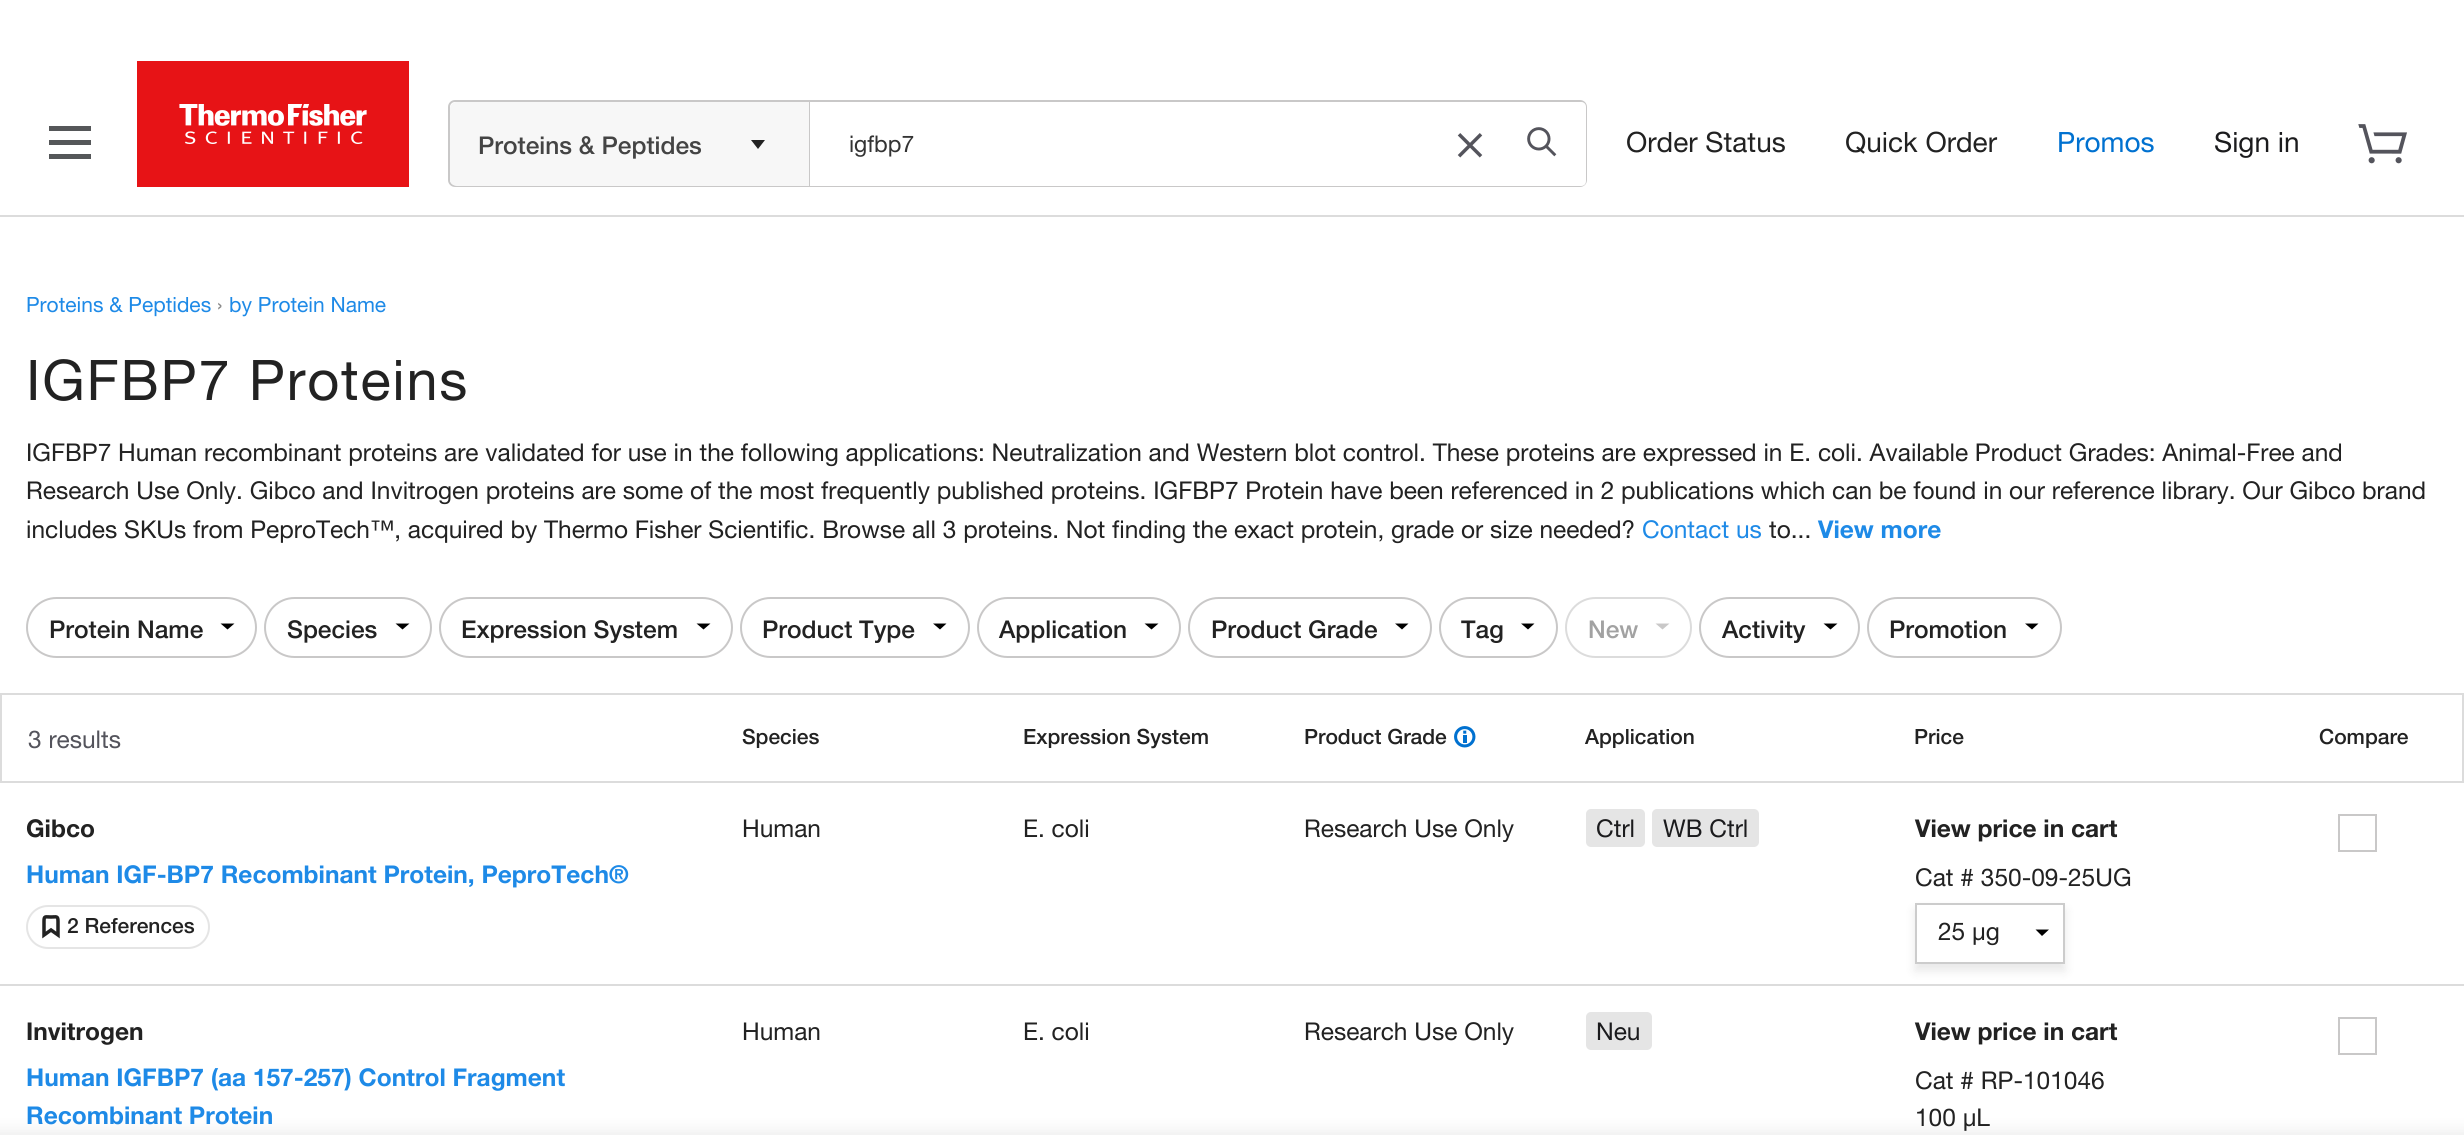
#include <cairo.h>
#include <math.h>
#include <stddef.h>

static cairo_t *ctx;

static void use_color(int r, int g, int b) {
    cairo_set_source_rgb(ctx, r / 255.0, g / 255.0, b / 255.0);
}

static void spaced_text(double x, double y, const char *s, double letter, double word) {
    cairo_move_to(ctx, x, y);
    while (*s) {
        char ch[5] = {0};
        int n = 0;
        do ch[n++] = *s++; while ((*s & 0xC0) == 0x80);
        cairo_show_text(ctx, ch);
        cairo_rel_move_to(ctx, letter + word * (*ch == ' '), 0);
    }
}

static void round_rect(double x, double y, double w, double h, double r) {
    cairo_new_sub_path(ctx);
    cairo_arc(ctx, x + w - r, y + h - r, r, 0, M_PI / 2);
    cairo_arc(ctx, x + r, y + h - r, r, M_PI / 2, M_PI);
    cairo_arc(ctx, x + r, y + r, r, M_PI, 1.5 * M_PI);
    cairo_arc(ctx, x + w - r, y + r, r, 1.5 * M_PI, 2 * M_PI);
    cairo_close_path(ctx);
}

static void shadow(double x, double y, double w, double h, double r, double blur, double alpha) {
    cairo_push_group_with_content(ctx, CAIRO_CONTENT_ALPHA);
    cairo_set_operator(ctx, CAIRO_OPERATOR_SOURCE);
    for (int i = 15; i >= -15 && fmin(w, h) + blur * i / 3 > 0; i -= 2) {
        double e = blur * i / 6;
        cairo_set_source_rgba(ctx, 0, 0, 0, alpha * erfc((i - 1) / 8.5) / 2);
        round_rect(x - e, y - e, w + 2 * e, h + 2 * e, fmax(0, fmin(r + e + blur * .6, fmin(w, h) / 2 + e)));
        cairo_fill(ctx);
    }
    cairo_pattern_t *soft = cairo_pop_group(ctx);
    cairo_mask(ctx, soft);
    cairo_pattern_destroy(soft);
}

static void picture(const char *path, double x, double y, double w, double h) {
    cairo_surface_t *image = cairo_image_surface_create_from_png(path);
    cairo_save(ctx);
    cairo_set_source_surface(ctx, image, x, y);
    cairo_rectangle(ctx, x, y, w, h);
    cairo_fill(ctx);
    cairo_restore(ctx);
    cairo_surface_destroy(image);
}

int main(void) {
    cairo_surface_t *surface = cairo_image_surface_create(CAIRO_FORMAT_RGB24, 2464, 1135);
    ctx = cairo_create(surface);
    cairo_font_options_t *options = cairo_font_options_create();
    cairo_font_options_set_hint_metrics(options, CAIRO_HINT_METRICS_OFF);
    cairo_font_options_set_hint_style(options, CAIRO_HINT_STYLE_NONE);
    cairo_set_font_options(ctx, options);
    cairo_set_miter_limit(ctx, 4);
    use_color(255, 255, 255);
    cairo_paint(ctx);
    use_color(220, 220, 220);
    cairo_rectangle(ctx, 0, 215, 2464, 2);
    cairo_fill(ctx);
    use_color(85, 87, 89);
    cairo_rectangle(ctx, 49, 140, 42, 5);
    cairo_fill(ctx);
    cairo_rectangle(ctx, 49, 126, 42, 5);
    cairo_fill(ctx);
    cairo_rectangle(ctx, 49, 154, 42, 5);
    cairo_fill(ctx);
    picture("img1.png", 137, 61, 272, 126);
    round_rect(449, 101, 1137, 85, 6);
    use_color(201, 200, 200);
    cairo_stroke(ctx);
    use_color(247, 247, 247);
    cairo_new_path(ctx);
    cairo_move_to(ctx, 457, 102);
    cairo_line_to(ctx, 809, 102);
    cairo_line_to(ctx, 809, 186);
    cairo_line_to(ctx, 457, 186);
    cairo_curve_to(ctx, 453, 186, 450, 183, 450, 179);
    cairo_line_to(ctx, 450, 109);
    cairo_curve_to(ctx, 450, 105, 453, 102, 457, 102);
    cairo_close_path(ctx);
    cairo_fill(ctx);
    use_color(201, 200, 200);
    cairo_rectangle(ctx, 809, 102, 1, 84);
    cairo_fill(ctx);
    cairo_select_font_face(ctx, "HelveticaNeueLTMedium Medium", CAIRO_FONT_SLANT_NORMAL, CAIRO_FONT_WEIGHT_NORMAL);
    cairo_set_font_size(ctx, 24.5);
    use_color(68, 68, 68);
    cairo_move_to(ctx, 478, 154);
    cairo_show_text(ctx, "Proteins & Peptides");
    use_color(34, 34, 34);
    cairo_new_path(ctx);
    cairo_move_to(ctx, 751, 140);
    cairo_line_to(ctx, 765, 140);
    cairo_line_to(ctx, 758, 149);
    cairo_close_path(ctx);
    cairo_fill(ctx);
    use_color(255, 255, 255);
    cairo_new_path(ctx);
    cairo_move_to(ctx, 810, 102);
    cairo_line_to(ctx, 1581, 102);
    cairo_curve_to(ctx, 1584, 102, 1586, 104, 1586, 107);
    cairo_line_to(ctx, 1586, 181);
    cairo_curve_to(ctx, 1586, 184, 1584, 186, 1581, 186);
    cairo_line_to(ctx, 810, 186);
    cairo_close_path(ctx);
    cairo_fill(ctx);
    cairo_select_font_face(ctx, "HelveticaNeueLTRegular", CAIRO_FONT_SLANT_NORMAL, CAIRO_FONT_WEIGHT_NORMAL);
    cairo_set_font_size(ctx, 23);
    use_color(51, 51, 51);
    cairo_move_to(ctx, 849, 152);
    cairo_show_text(ctx, "igfbp7");
    picture("img2.png", 1457, 133, 26, 25);
    picture("img3.png", 1527, 127, 30, 30);
    cairo_set_font_size(ctx, 28);
    use_color(34, 34, 34);
    cairo_move_to(ctx, 1626, 152);
    cairo_show_text(ctx, "Order Status");
    cairo_move_to(ctx, 1845, 152);
    cairo_show_text(ctx, "Quick Order");
    use_color(0, 113, 208);
    cairo_move_to(ctx, 2057, 152);
    cairo_show_text(ctx, "Promos");
    use_color(27, 27, 29);
    cairo_move_to(ctx, 2214, 152);
    cairo_show_text(ctx, "Sign in");
    picture("img4.png", 2358, 124, 49, 40);
    cairo_set_font_size(ctx, 21);
    use_color(30, 138, 231);
    cairo_move_to(ctx, 26, 312);
    cairo_show_text(ctx, "Proteins & Peptides");
    use_color(136, 136, 136);
    cairo_move_to(ctx, 217, 312);
    cairo_show_text(ctx, "›");
    use_color(30, 138, 231);
    cairo_move_to(ctx, 229, 312);
    cairo_show_text(ctx, "by Protein Name");
    cairo_set_font_size(ctx, 56);
    use_color(34, 34, 34);
    spaced_text(26, 400, "IGFBP7 Proteins", 1.75, 0);
    cairo_set_font_size(ctx, 24.5);
    cairo_move_to(ctx, 26, 461);
    cairo_show_text(ctx, "IGFBP7 Human recombinant proteins are validated for use in the following applications: Neutralization and Western blot control. These proteins are expressed in E. coli. Available Product Grades: Animal-Free and");
    cairo_move_to(ctx, 26, 499);
    cairo_show_text(ctx, "Research Use Only. Gibco and Invitrogen proteins are some of the most frequently published proteins. IGFBP7 Protein have been referenced in 2 publications which can be found in our reference library. Our Gibco brand");
    cairo_move_to(ctx, 26, 538);
    cairo_show_text(ctx, "includes SKUs from PeproTech™, acquired by Thermo Fisher Scientific. Browse all 3 proteins. Not finding the exact protein, grade or size needed?");
    use_color(30, 138, 231);
    cairo_move_to(ctx, 1642, 538);
    cairo_show_text(ctx, "Contact us");
    use_color(34, 34, 34);
    cairo_move_to(ctx, 1769, 538);
    cairo_show_text(ctx, "to...");
    cairo_select_font_face(ctx, "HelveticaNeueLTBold", CAIRO_FONT_SLANT_NORMAL, CAIRO_FONT_WEIGHT_BOLD);
    use_color(30, 138, 231);
    cairo_move_to(ctx, 1818, 538);
    cairo_show_text(ctx, "View more");
    round_rect(27, 598, 229, 59, 29.5);
    use_color(201, 200, 200);
    cairo_stroke(ctx);
    cairo_select_font_face(ctx, "HelveticaNeueLTMedium Medium", CAIRO_FONT_SLANT_NORMAL, CAIRO_FONT_WEIGHT_NORMAL);
    use_color(34, 34, 34);
    cairo_move_to(ctx, 49, 638);
    cairo_show_text(ctx, "Protein Name");
    use_color(0, 0, 0);
    cairo_new_path(ctx);
    cairo_move_to(ctx, 227.5, 629.5);
    cairo_line_to(ctx, 220.5, 623.5);
    cairo_line_to(ctx, 234.5, 623.5);
    cairo_close_path(ctx);
    cairo_fill(ctx);
    round_rect(265, 598, 166, 59, 29.5);
    use_color(201, 200, 200);
    cairo_stroke(ctx);
    use_color(34, 34, 34);
    cairo_move_to(ctx, 287, 638);
    cairo_show_text(ctx, "Species");
    use_color(0, 0, 0);
    cairo_new_path(ctx);
    cairo_move_to(ctx, 402.5, 629.5);
    cairo_line_to(ctx, 395.5, 623.5);
    cairo_line_to(ctx, 409.5, 623.5);
    cairo_close_path(ctx);
    cairo_fill(ctx);
    round_rect(440, 598, 292, 59, 29.5);
    use_color(201, 200, 200);
    cairo_stroke(ctx);
    use_color(34, 34, 34);
    cairo_move_to(ctx, 461, 638);
    cairo_show_text(ctx, "Expression System");
    use_color(0, 0, 0);
    cairo_new_path(ctx);
    cairo_move_to(ctx, 703.5, 629.5);
    cairo_line_to(ctx, 696.5, 623.5);
    cairo_line_to(ctx, 710.5, 623.5);
    cairo_close_path(ctx);
    cairo_fill(ctx);
    round_rect(741, 598, 228, 59, 29.5);
    use_color(201, 200, 200);
    cairo_stroke(ctx);
    use_color(34, 34, 34);
    cairo_move_to(ctx, 762, 638);
    cairo_show_text(ctx, "Product Type");
    use_color(0, 0, 0);
    cairo_new_path(ctx);
    cairo_move_to(ctx, 940, 629.5);
    cairo_line_to(ctx, 933, 623.5);
    cairo_line_to(ctx, 946.5, 623.5);
    cairo_close_path(ctx);
    cairo_fill(ctx);
    round_rect(978, 598, 202, 59, 29.5);
    use_color(201, 200, 200);
    cairo_stroke(ctx);
    use_color(34, 34, 34);
    cairo_move_to(ctx, 999, 638);
    cairo_show_text(ctx, "Application");
    use_color(0, 0, 0);
    cairo_new_path(ctx);
    cairo_move_to(ctx, 1151.5, 629.5);
    cairo_line_to(ctx, 1144.5, 623.5);
    cairo_line_to(ctx, 1158.5, 623.5);
    cairo_close_path(ctx);
    cairo_fill(ctx);
    round_rect(1189, 598, 242, 59, 29.5);
    use_color(201, 200, 200);
    cairo_stroke(ctx);
    use_color(34, 34, 34);
    cairo_move_to(ctx, 1211, 638);
    cairo_show_text(ctx, "Product Grade");
    use_color(0, 0, 0);
    cairo_new_path(ctx);
    cairo_move_to(ctx, 1402, 629.5);
    cairo_line_to(ctx, 1395, 623.5);
    cairo_line_to(ctx, 1408.5, 623.5);
    cairo_close_path(ctx);
    cairo_fill(ctx);
    round_rect(1440, 598, 117, 59, 29.5);
    use_color(201, 200, 200);
    cairo_stroke(ctx);
    use_color(34, 34, 34);
    cairo_move_to(ctx, 1461, 638);
    cairo_show_text(ctx, "Tag");
    use_color(0, 0, 0);
    cairo_new_path(ctx);
    cairo_move_to(ctx, 1528, 629.5);
    cairo_line_to(ctx, 1521, 623.5);
    cairo_line_to(ctx, 1534.5, 623.5);
    cairo_close_path(ctx);
    cairo_fill(ctx);
    round_rect(1566, 598, 125, 59, 29.5);
    use_color(220, 220, 220);
    cairo_stroke(ctx);
    use_color(162, 162, 162);
    cairo_move_to(ctx, 1588, 638);
    cairo_show_text(ctx, "New");
    use_color(201, 200, 200);
    cairo_new_path(ctx);
    cairo_move_to(ctx, 1662.5, 629.5);
    cairo_line_to(ctx, 1655.5, 623.5);
    cairo_line_to(ctx, 1669.5, 623.5);
    cairo_close_path(ctx);
    cairo_fill(ctx);
    round_rect(1700, 598, 159, 59, 29.5);
    cairo_stroke(ctx);
    use_color(34, 34, 34);
    cairo_move_to(ctx, 1722, 638);
    cairo_show_text(ctx, "Activity");
    use_color(0, 0, 0);
    cairo_new_path(ctx);
    cairo_move_to(ctx, 1830.5, 629.5);
    cairo_line_to(ctx, 1823.5, 623.5);
    cairo_line_to(ctx, 1837.5, 623.5);
    cairo_close_path(ctx);
    cairo_fill(ctx);
    round_rect(1868, 598, 193, 59, 29.5);
    use_color(201, 200, 200);
    cairo_stroke(ctx);
    use_color(34, 34, 34);
    cairo_move_to(ctx, 1889, 638);
    cairo_show_text(ctx, "Promotion");
    use_color(0, 0, 0);
    cairo_new_path(ctx);
    cairo_move_to(ctx, 2032, 629.5);
    cairo_line_to(ctx, 2025, 623.5);
    cairo_line_to(ctx, 2038.5, 623.5);
    cairo_close_path(ctx);
    cairo_fill(ctx);
    use_color(220, 220, 220);
    cairo_rectangle(ctx, 0, 693, 2464, 2);
    cairo_fill(ctx);
    cairo_rectangle(ctx, 2462, 695, 2, 87);
    cairo_fill(ctx);
    cairo_rectangle(ctx, 0, 781, 2464, 2);
    cairo_fill(ctx);
    cairo_rectangle(ctx, 0, 695, 2, 87);
    cairo_fill(ctx);
    cairo_select_font_face(ctx, "HelveticaNeueLTRegular", CAIRO_FONT_SLANT_NORMAL, CAIRO_FONT_WEIGHT_NORMAL);
    use_color(84, 84, 92);
    cairo_move_to(ctx, 28, 748);
    cairo_show_text(ctx, "3 results");
    cairo_select_font_face(ctx, "HelveticaNeueLTMedium Medium", CAIRO_FONT_SLANT_NORMAL, CAIRO_FONT_WEIGHT_NORMAL);
    cairo_set_font_size(ctx, 21);
    use_color(34, 34, 34);
    cairo_move_to(ctx, 742, 744);
    cairo_show_text(ctx, "Species");
    cairo_move_to(ctx, 1023, 744);
    cairo_show_text(ctx, "Expression System");
    cairo_move_to(ctx, 1304, 744);
    cairo_show_text(ctx, "Product Grade");
    picture("img5.png", 1454, 726, 22, 22);
    cairo_move_to(ctx, 1585, 744);
    cairo_show_text(ctx, "Application");
    cairo_move_to(ctx, 1914, 744);
    cairo_show_text(ctx, "Price");
    cairo_move_to(ctx, 2319, 744);
    cairo_show_text(ctx, "Compare");
    use_color(220, 220, 220);
    cairo_rectangle(ctx, 0, 984, 2464, 2);
    cairo_fill(ctx);
    cairo_select_font_face(ctx, "HelveticaNeueLTBold", CAIRO_FONT_SLANT_NORMAL, CAIRO_FONT_WEIGHT_BOLD);
    cairo_set_font_size(ctx, 24.5);
    use_color(34, 34, 34);
    cairo_move_to(ctx, 26, 837);
    cairo_show_text(ctx, "Gibco");
    use_color(30, 138, 231);
    cairo_move_to(ctx, 26, 883);
    cairo_show_text(ctx, "Human IGF-BP7 Recombinant Protein, PeproTech®");
    round_rect(27, 906, 182, 42, 21);
    use_color(229, 229, 229);
    cairo_stroke(ctx);
    cairo_new_path(ctx);
    cairo_move_to(ctx, 44, 935);
    cairo_line_to(ctx, 51, 930);
    cairo_line_to(ctx, 58, 935);
    cairo_line_to(ctx, 58, 921.5);
    cairo_curve_to(ctx, 58, 915.5, 56.5, 917, 51, 917);
    cairo_curve_to(ctx, 45, 917, 44, 915.5, 44, 921.5);
    cairo_close_path(ctx);
    use_color(34, 34, 34);
    cairo_set_line_width(ctx, 3.5);
    cairo_stroke(ctx);
    cairo_select_font_face(ctx, "HelveticaNeueLTMedium Medium", CAIRO_FONT_SLANT_NORMAL, CAIRO_FONT_WEIGHT_NORMAL);
    cairo_set_font_size(ctx, 21);
    cairo_move_to(ctx, 67, 933);
    cairo_show_text(ctx, "2 References");
    cairo_select_font_face(ctx, "HelveticaNeueLTRegular", CAIRO_FONT_SLANT_NORMAL, CAIRO_FONT_WEIGHT_NORMAL);
    cairo_set_font_size(ctx, 24.5);
    cairo_move_to(ctx, 742, 837);
    cairo_show_text(ctx, "Human");
    cairo_move_to(ctx, 1023, 837);
    cairo_show_text(ctx, "E. coli");
    cairo_move_to(ctx, 1304, 837);
    cairo_show_text(ctx, "Research Use Only");
    use_color(229, 229, 229);
    round_rect(1586, 809, 59, 38, 5);
    cairo_fill(ctx);
    use_color(27, 27, 29);
    cairo_move_to(ctx, 1596, 837);
    cairo_show_text(ctx, "Ctrl");
    use_color(229, 229, 229);
    round_rect(1652, 809, 107, 38, 5);
    cairo_fill(ctx);
    use_color(27, 27, 29);
    cairo_move_to(ctx, 1663, 837);
    cairo_show_text(ctx, "WB Ctrl");
    cairo_select_font_face(ctx, "HelveticaNeueLTBold", CAIRO_FONT_SLANT_NORMAL, CAIRO_FONT_WEIGHT_BOLD);
    use_color(34, 34, 34);
    cairo_move_to(ctx, 1915, 837);
    cairo_show_text(ctx, "View price in cart");
    cairo_select_font_face(ctx, "HelveticaNeueLTRegular", CAIRO_FONT_SLANT_NORMAL, CAIRO_FONT_WEIGHT_NORMAL);
    cairo_move_to(ctx, 1915, 886);
    cairo_show_text(ctx, "Cat # 350-09-25UG");
    cairo_save(ctx);
    cairo_set_fill_rule(ctx, CAIRO_FILL_RULE_EVEN_ODD);
    cairo_new_path(ctx);
    cairo_move_to(ctx, 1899, 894);
    cairo_line_to(ctx, 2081, 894);
    cairo_line_to(ctx, 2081, 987);
    cairo_line_to(ctx, 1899, 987);
    cairo_close_path(ctx);
    cairo_move_to(ctx, 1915, 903);
    cairo_line_to(ctx, 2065, 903);
    cairo_line_to(ctx, 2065, 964);
    cairo_line_to(ctx, 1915, 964);
    cairo_close_path(ctx);
    cairo_clip(ctx);
    use_color(27, 27, 29);
    shadow(1915, 910, 150, 61, 0, 5, 0.1);
    cairo_restore(ctx);
    cairo_rectangle(ctx, 1916, 904, 148, 59);
    use_color(204, 204, 204);
    cairo_set_line_width(ctx, 2);
    cairo_stroke(ctx);
    use_color(34, 34, 34);
    cairo_move_to(ctx, 1938, 940);
    cairo_show_text(ctx, "25 µg");
    use_color(0, 0, 0);
    cairo_new_path(ctx);
    cairo_move_to(ctx, 2042, 936);
    cairo_line_to(ctx, 2035.5, 929.5);
    cairo_line_to(ctx, 2049, 929.5);
    cairo_close_path(ctx);
    cairo_fill(ctx);
    cairo_rectangle(ctx, 2339, 815, 37, 36);
    use_color(201, 200, 200);
    cairo_stroke(ctx);
    cairo_select_font_face(ctx, "HelveticaNeueLTBold", CAIRO_FONT_SLANT_NORMAL, CAIRO_FONT_WEIGHT_BOLD);
    use_color(34, 34, 34);
    cairo_move_to(ctx, 26, 1040);
    cairo_show_text(ctx, "Invitrogen");
    use_color(30, 138, 231);
    cairo_move_to(ctx, 26, 1086);
    cairo_show_text(ctx, "Human IGFBP7 (aa 157-257) Control Fragment");
    cairo_move_to(ctx, 26, 1124);
    cairo_show_text(ctx, "Recombinant Protein");
    cairo_select_font_face(ctx, "HelveticaNeueLTRegular", CAIRO_FONT_SLANT_NORMAL, CAIRO_FONT_WEIGHT_NORMAL);
    use_color(34, 34, 34);
    cairo_move_to(ctx, 742, 1040);
    cairo_show_text(ctx, "Human");
    cairo_move_to(ctx, 1023, 1040);
    cairo_show_text(ctx, "E. coli");
    cairo_move_to(ctx, 1304, 1040);
    cairo_show_text(ctx, "Research Use Only");
    use_color(229, 229, 229);
    round_rect(1586, 1012, 66, 38, 5);
    cairo_fill(ctx);
    use_color(27, 27, 29);
    cairo_move_to(ctx, 1596, 1040);
    cairo_show_text(ctx, "Neu");
    cairo_select_font_face(ctx, "HelveticaNeueLTBold", CAIRO_FONT_SLANT_NORMAL, CAIRO_FONT_WEIGHT_BOLD);
    use_color(34, 34, 34);
    cairo_move_to(ctx, 1915, 1040);
    cairo_show_text(ctx, "View price in cart");
    cairo_select_font_face(ctx, "HelveticaNeueLTRegular", CAIRO_FONT_SLANT_NORMAL, CAIRO_FONT_WEIGHT_NORMAL);
    cairo_move_to(ctx, 1915, 1089);
    cairo_show_text(ctx, "Cat # RP-101046");
    cairo_move_to(ctx, 1915, 1126);
    cairo_show_text(ctx, "100 µL");
    cairo_rectangle(ctx, 2339, 1018, 37, 36);
    use_color(201, 200, 200);
    cairo_stroke(ctx);
    use_color(0, 0, 0);
    shadow(-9, 1134, 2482, 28, 0, 9, 0.1);
    cairo_surface_write_to_png(surface, "result.png");
    cairo_font_options_destroy(options);
    cairo_destroy(ctx);
    cairo_surface_destroy(surface);
    return 0;
}
